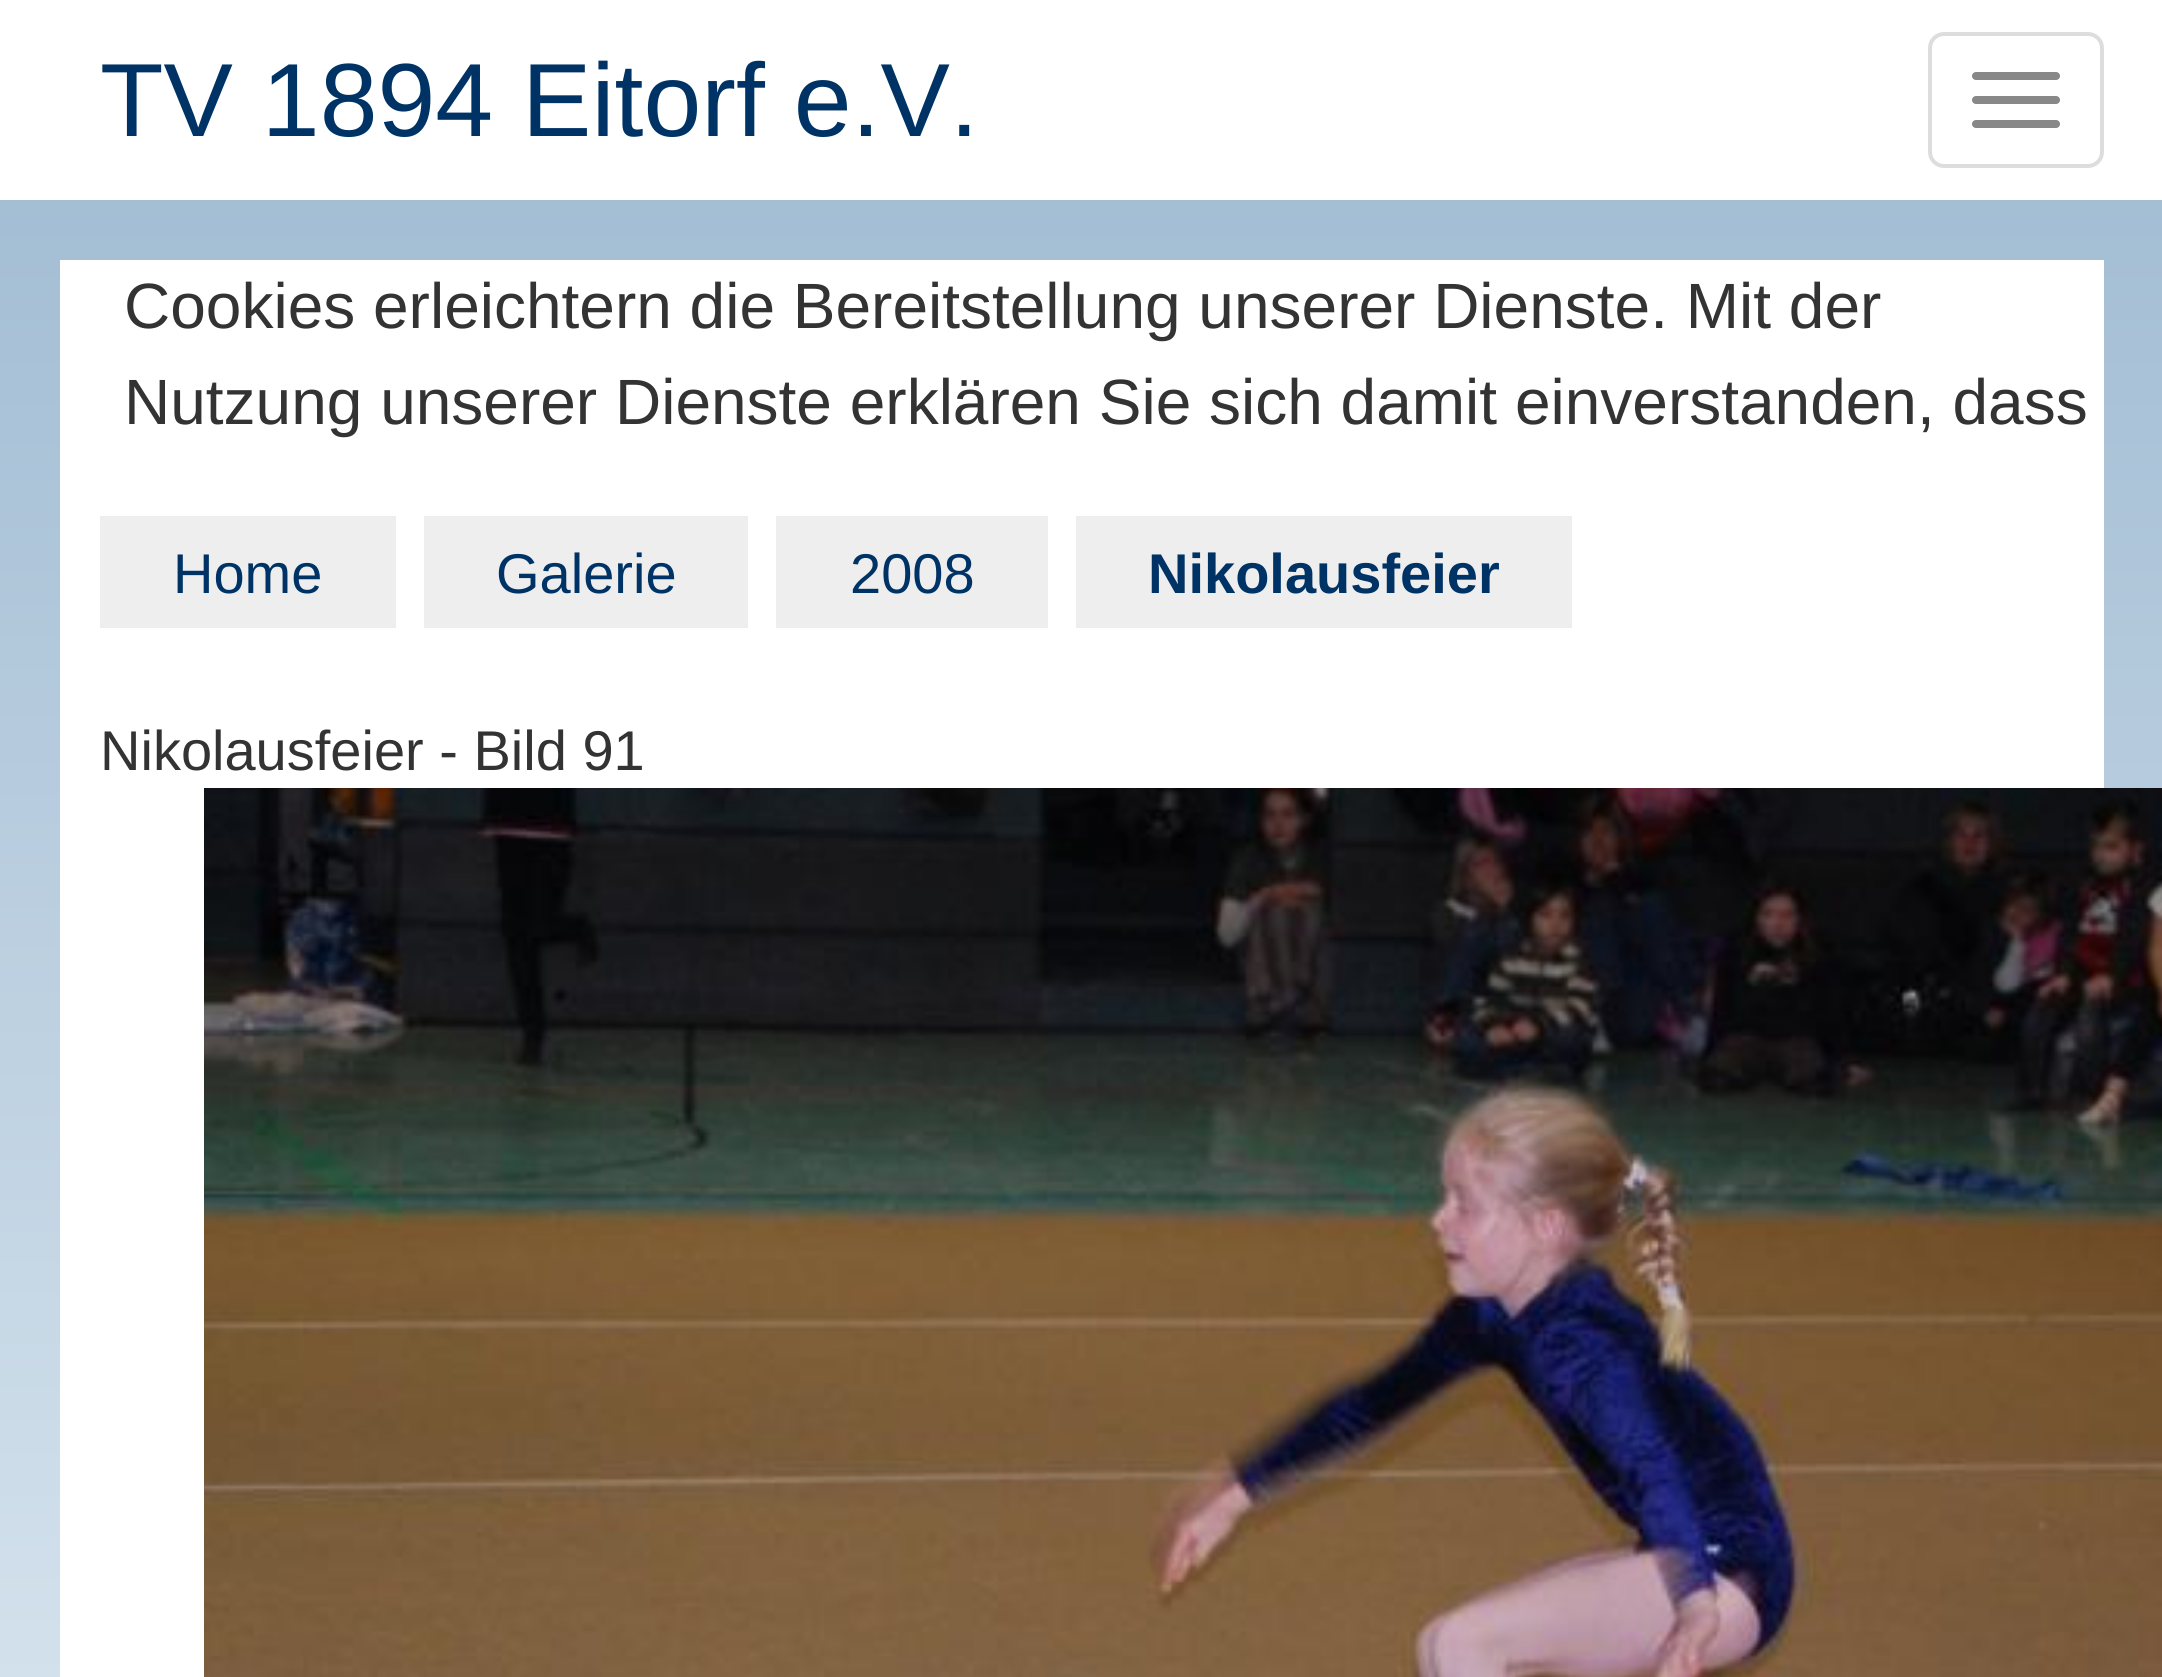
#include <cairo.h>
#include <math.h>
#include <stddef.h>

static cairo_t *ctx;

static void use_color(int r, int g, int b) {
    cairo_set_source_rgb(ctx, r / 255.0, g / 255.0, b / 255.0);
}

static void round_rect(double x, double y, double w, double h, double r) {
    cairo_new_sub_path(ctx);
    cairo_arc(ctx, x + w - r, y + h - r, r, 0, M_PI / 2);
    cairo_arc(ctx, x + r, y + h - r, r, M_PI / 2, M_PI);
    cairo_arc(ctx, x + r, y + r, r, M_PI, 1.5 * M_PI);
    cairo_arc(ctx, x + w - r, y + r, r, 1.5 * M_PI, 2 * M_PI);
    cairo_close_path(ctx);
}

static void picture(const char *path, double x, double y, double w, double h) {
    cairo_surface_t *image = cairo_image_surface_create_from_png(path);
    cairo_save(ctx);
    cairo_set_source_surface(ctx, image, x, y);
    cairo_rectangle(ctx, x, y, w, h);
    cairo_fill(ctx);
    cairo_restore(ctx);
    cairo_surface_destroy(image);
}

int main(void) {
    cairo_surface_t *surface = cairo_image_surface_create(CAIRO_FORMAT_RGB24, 2162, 1677);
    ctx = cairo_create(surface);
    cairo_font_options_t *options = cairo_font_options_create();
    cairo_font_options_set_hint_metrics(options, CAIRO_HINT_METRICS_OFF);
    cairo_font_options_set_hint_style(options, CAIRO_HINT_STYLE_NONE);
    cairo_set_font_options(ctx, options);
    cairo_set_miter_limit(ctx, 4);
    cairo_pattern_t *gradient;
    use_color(255, 255, 255);
    cairo_paint(ctx);
    cairo_select_font_face(ctx, "Liberation Sans", CAIRO_FONT_SLANT_NORMAL, CAIRO_FONT_WEIGHT_NORMAL);
    cairo_set_font_size(ctx, 104);
    use_color(0, 51, 101);
    cairo_move_to(ctx, 100, 136);
    cairo_show_text(ctx, "TV 1894 Eitorf e.V.");
    round_rect(1930, 34, 172, 132, 14);
    use_color(221, 221, 221);
    cairo_set_line_width(ctx, 4);
    cairo_stroke(ctx);
    use_color(136, 136, 136);
    round_rect(1972, 72, 88, 8, 4);
    cairo_fill(ctx);
    round_rect(1972, 96, 88, 8, 4);
    cairo_fill(ctx);
    round_rect(1972, 120, 88, 8, 4);
    cairo_fill(ctx);
    gradient = cairo_pattern_create_linear(1082, 0, 1082, 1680);
    cairo_pattern_add_color_stop_rgba(gradient, 0, 0.616, 0.725, 0.82, 1);
    cairo_pattern_add_color_stop_rgba(gradient, 1, 0.827, 0.882, 0.925, 1);
    cairo_set_source(ctx, gradient);
    cairo_pattern_destroy(gradient);
    cairo_rectangle(ctx, 0, 200, 2162, 1477);
    cairo_fill(ctx);
    use_color(255, 255, 255);
    cairo_rectangle(ctx, 60, 260, 2044, 1417);
    cairo_fill(ctx);
    cairo_set_font_size(ctx, 64);
    use_color(51, 51, 51);
    cairo_move_to(ctx, 124, 328);
    cairo_show_text(ctx, "Cookies erleichtern die Bereitstellung unserer Dienste. Mit der");
    cairo_move_to(ctx, 124, 424);
    cairo_show_text(ctx, "Nutzung unserer Dienste erklären Sie sich damit einverstanden, dass");
    use_color(238, 238, 238);
    cairo_rectangle(ctx, 100, 516, 296, 112);
    cairo_fill(ctx);
    cairo_set_font_size(ctx, 56);
    use_color(0, 51, 101);
    cairo_move_to(ctx, 173, 593);
    cairo_show_text(ctx, "Home");
    use_color(238, 238, 238);
    cairo_rectangle(ctx, 424, 516, 324, 112);
    cairo_fill(ctx);
    use_color(0, 51, 101);
    cairo_move_to(ctx, 496, 593);
    cairo_show_text(ctx, "Galerie");
    use_color(238, 238, 238);
    cairo_rectangle(ctx, 776, 516, 272, 112);
    cairo_fill(ctx);
    use_color(0, 51, 101);
    cairo_move_to(ctx, 850, 593);
    cairo_show_text(ctx, "2008");
    use_color(238, 238, 238);
    cairo_rectangle(ctx, 1076, 516, 496, 112);
    cairo_fill(ctx);
    cairo_select_font_face(ctx, "Liberation Sans", CAIRO_FONT_SLANT_NORMAL, CAIRO_FONT_WEIGHT_BOLD);
    use_color(0, 51, 101);
    cairo_move_to(ctx, 1148, 593);
    cairo_show_text(ctx, "Nikolausfeier");
    cairo_select_font_face(ctx, "Liberation Sans", CAIRO_FONT_SLANT_NORMAL, CAIRO_FONT_WEIGHT_NORMAL);
    use_color(51, 51, 51);
    cairo_move_to(ctx, 100, 770);
    cairo_show_text(ctx, "Nikolausfeier - Bild 91");
    picture("img1.png", 204, 788, 1958, 889);
    cairo_surface_write_to_png(surface, "result.png");
    cairo_font_options_destroy(options);
    cairo_destroy(ctx);
    cairo_surface_destroy(surface);
    return 0;
}
